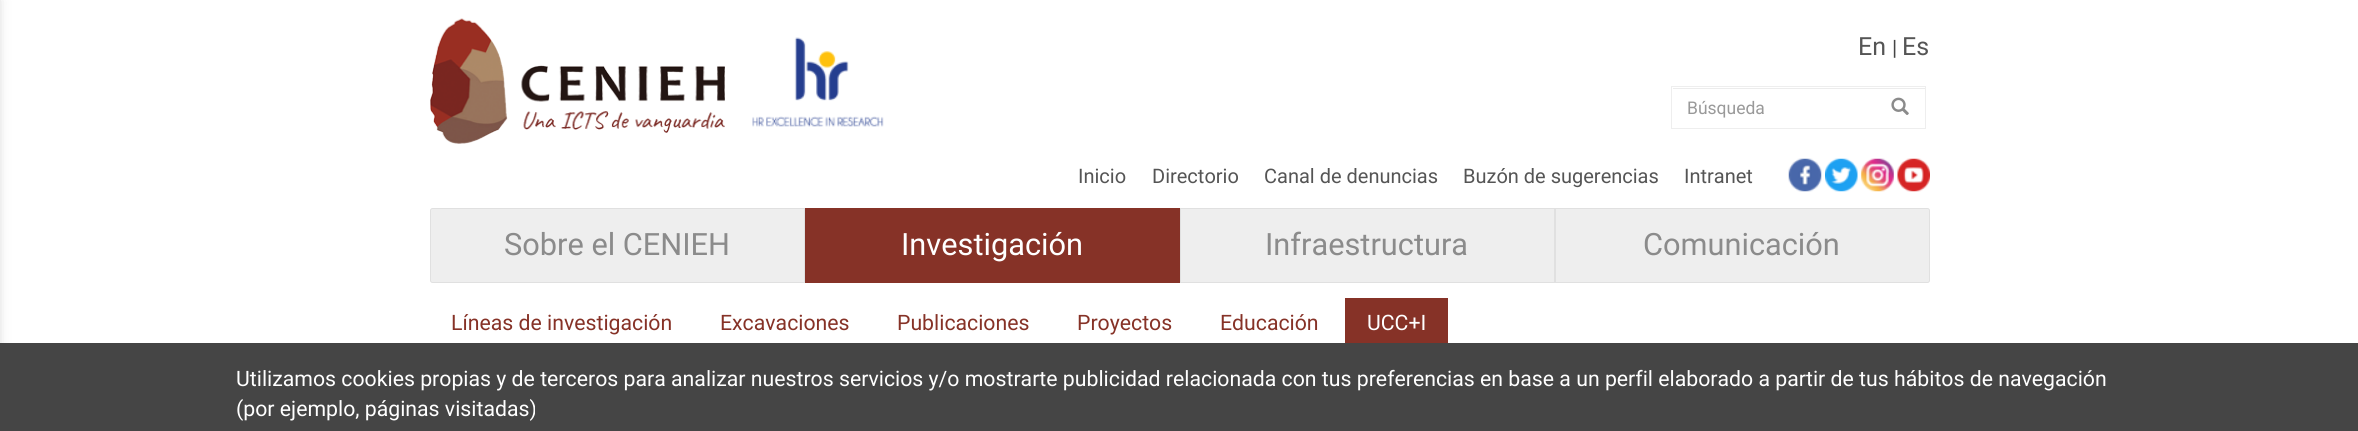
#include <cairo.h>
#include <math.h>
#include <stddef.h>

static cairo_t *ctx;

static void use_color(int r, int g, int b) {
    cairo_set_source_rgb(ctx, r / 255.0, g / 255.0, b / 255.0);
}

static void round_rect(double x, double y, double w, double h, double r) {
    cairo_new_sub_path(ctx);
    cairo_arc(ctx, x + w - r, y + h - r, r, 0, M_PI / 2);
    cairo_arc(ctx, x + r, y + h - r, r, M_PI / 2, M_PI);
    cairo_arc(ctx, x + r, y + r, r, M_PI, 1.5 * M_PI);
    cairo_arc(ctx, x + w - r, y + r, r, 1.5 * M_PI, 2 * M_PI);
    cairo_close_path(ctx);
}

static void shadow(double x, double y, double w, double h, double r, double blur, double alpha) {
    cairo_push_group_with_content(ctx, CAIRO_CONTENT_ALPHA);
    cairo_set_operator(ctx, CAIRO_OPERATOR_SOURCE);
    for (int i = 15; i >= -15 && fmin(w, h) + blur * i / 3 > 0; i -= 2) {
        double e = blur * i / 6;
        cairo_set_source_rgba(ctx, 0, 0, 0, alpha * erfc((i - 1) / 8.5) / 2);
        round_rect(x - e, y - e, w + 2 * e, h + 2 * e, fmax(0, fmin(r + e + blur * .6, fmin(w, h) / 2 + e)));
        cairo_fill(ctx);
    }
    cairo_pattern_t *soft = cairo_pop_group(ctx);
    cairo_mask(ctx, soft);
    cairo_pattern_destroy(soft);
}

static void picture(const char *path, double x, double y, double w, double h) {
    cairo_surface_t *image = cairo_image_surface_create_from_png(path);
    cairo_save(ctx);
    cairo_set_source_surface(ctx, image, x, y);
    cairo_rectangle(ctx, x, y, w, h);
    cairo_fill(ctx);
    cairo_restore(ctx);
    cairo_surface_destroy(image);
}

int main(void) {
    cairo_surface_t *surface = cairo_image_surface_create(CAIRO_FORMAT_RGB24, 2358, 431);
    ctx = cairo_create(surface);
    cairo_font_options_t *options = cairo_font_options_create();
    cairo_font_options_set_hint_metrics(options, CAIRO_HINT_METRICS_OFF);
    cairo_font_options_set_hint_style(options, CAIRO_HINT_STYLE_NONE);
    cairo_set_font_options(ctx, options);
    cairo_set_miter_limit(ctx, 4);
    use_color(255, 255, 255);
    cairo_paint(ctx);
    use_color(0, 0, 0);
    shadow(-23, 0, 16, 431, 0, 7.5, 0.4);
    picture("img1.png", 430, 18, 295, 126);
    picture("img2.png", 752, 37, 132, 90);
    cairo_select_font_face(ctx, "Roboto", CAIRO_FONT_SLANT_NORMAL, CAIRO_FONT_WEIGHT_NORMAL);
    cairo_set_font_size(ctx, 25);
    use_color(85, 85, 85);
    cairo_move_to(ctx, 1858, 55);
    cairo_show_text(ctx, "En");
    cairo_set_font_size(ctx, 21.25);
    use_color(69, 69, 69);
    cairo_move_to(ctx, 1892, 55);
    cairo_show_text(ctx, "|");
    cairo_set_font_size(ctx, 25);
    use_color(85, 85, 85);
    cairo_move_to(ctx, 1902, 55);
    cairo_show_text(ctx, "Es");
    use_color(236, 236, 236);
    cairo_rectangle(ctx, 1673, 88, 252, 1);
    cairo_fill(ctx);
    cairo_rectangle(ctx, 1671.5, 86.5, 254, 42);
    use_color(238, 238, 238);
    cairo_set_line_width(ctx, 1);
    cairo_stroke(ctx);
    cairo_set_font_size(ctx, 17.5);
    use_color(153, 153, 153);
    cairo_move_to(ctx, 1687, 114);
    cairo_show_text(ctx, "Búsqueda");
    picture("img3.png", 1891, 97, 18, 18);
    cairo_set_font_size(ctx, 20);
    use_color(85, 85, 85);
    cairo_move_to(ctx, 1078, 183);
    cairo_show_text(ctx, "Inicio");
    cairo_move_to(ctx, 1152, 183);
    cairo_show_text(ctx, "Directorio");
    cairo_move_to(ctx, 1264, 183);
    cairo_show_text(ctx, "Canal de denuncias");
    cairo_move_to(ctx, 1463, 183);
    cairo_show_text(ctx, "Buzón de sugerencias");
    cairo_move_to(ctx, 1684, 183);
    cairo_show_text(ctx, "Intranet");
    picture("img4.png", 1788, 158, 34, 34);
    picture("img5.png", 1825, 158, 33, 34);
    picture("img6.png", 1861, 158, 33, 34);
    picture("img7.png", 1897, 158, 33, 34);
    use_color(238, 238, 238);
    cairo_new_path(ctx);
    cairo_move_to(ctx, 432.5, 208.5);
    cairo_line_to(ctx, 804.5, 208.5);
    cairo_line_to(ctx, 804.5, 282.5);
    cairo_line_to(ctx, 432.5, 282.5);
    cairo_curve_to(ctx, 431.5, 282.5, 430.5, 281.5, 430.5, 280.5);
    cairo_line_to(ctx, 430.5, 210.5);
    cairo_curve_to(ctx, 430.5, 209.5, 431.5, 208.5, 432.5, 208.5);
    cairo_close_path(ctx);
    cairo_fill_preserve(ctx);
    use_color(224, 224, 224);
    cairo_stroke(ctx);
    cairo_set_font_size(ctx, 30.75);
    use_color(139, 139, 139);
    cairo_move_to(ctx, 504, 255);
    cairo_show_text(ctx, "Sobre el CENIEH");
    use_color(134, 50, 39);
    cairo_rectangle(ctx, 805, 208, 375, 75);
    cairo_fill(ctx);
    use_color(255, 255, 255);
    cairo_move_to(ctx, 901, 255);
    cairo_show_text(ctx, "Investigación");
    use_color(238, 238, 238);
    cairo_rectangle(ctx, 1180.5, 208.5, 374, 74);
    cairo_fill_preserve(ctx);
    use_color(224, 224, 224);
    cairo_stroke(ctx);
    use_color(139, 139, 139);
    cairo_move_to(ctx, 1265, 255);
    cairo_show_text(ctx, "Infraestructura");
    use_color(238, 238, 238);
    cairo_new_path(ctx);
    cairo_move_to(ctx, 1555.5, 208.5);
    cairo_line_to(ctx, 1927.5, 208.5);
    cairo_curve_to(ctx, 1928.5, 208.5, 1929.5, 209.5, 1929.5, 210.5);
    cairo_line_to(ctx, 1929.5, 280.5);
    cairo_curve_to(ctx, 1929.5, 281.5, 1928.5, 282.5, 1927.5, 282.5);
    cairo_line_to(ctx, 1555.5, 282.5);
    cairo_close_path(ctx);
    cairo_fill_preserve(ctx);
    use_color(224, 224, 224);
    cairo_stroke(ctx);
    use_color(139, 139, 139);
    cairo_move_to(ctx, 1643, 255);
    cairo_show_text(ctx, "Comunicación");
    cairo_set_font_size(ctx, 21.25);
    use_color(134, 50, 39);
    cairo_move_to(ctx, 451, 330);
    cairo_show_text(ctx, "Líneas de investigación");
    cairo_move_to(ctx, 720, 330);
    cairo_show_text(ctx, "Excavaciones");
    cairo_move_to(ctx, 897, 330);
    cairo_show_text(ctx, "Publicaciones");
    cairo_move_to(ctx, 1077, 330);
    cairo_show_text(ctx, "Proyectos");
    cairo_move_to(ctx, 1220, 330);
    cairo_show_text(ctx, "Educación");
    cairo_rectangle(ctx, 1345, 298, 103, 45);
    cairo_fill(ctx);
    use_color(255, 255, 255);
    cairo_move_to(ctx, 1367, 330);
    cairo_show_text(ctx, "UCC+I");
    use_color(69, 69, 69);
    cairo_rectangle(ctx, 0, 343, 2358, 88);
    cairo_fill(ctx);
    use_color(255, 255, 255);
    cairo_move_to(ctx, 236, 386);
    cairo_show_text(ctx, "Utilizamos cookies propias y de terceros para analizar nuestros servicios y/o mostrarte publicidad relacionada con tus preferencias en base a un perfil elaborado a partir de tus hábitos de navegación");
    cairo_move_to(ctx, 236, 416);
    cairo_show_text(ctx, "(por ejemplo, páginas visitadas)");
    cairo_surface_write_to_png(surface, "result.png");
    cairo_font_options_destroy(options);
    cairo_destroy(ctx);
    cairo_surface_destroy(surface);
    return 0;
}
